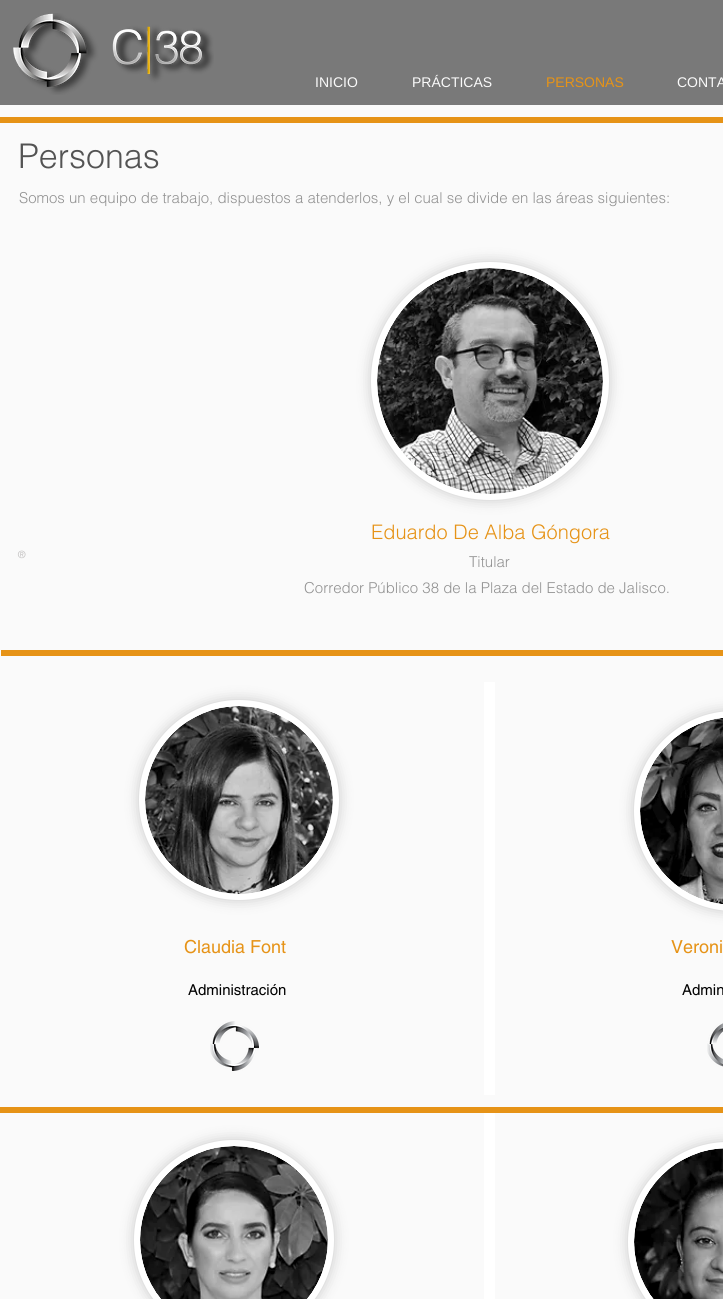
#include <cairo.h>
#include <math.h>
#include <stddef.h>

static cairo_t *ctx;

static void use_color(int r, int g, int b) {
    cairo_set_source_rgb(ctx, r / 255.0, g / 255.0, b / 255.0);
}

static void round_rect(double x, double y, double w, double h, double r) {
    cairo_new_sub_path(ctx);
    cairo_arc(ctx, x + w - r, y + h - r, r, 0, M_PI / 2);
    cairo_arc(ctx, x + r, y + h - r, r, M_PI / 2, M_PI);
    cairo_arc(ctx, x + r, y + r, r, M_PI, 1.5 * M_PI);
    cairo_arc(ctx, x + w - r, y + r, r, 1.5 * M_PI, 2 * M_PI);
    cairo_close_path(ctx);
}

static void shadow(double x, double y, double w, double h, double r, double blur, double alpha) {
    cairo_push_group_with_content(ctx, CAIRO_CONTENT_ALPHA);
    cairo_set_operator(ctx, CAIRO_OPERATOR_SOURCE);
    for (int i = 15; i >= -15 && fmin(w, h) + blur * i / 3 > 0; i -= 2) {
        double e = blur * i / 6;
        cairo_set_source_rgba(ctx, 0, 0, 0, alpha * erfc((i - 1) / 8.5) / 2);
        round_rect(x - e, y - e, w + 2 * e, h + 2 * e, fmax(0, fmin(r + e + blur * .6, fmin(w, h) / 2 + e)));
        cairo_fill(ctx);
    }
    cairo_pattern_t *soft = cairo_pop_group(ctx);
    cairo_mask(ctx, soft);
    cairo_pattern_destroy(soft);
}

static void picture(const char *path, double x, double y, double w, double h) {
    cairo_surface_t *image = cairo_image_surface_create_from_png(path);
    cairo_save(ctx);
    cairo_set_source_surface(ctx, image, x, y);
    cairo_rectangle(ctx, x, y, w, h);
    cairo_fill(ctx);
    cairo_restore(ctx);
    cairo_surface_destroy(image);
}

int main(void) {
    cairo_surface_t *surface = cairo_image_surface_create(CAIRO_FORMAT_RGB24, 723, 1299);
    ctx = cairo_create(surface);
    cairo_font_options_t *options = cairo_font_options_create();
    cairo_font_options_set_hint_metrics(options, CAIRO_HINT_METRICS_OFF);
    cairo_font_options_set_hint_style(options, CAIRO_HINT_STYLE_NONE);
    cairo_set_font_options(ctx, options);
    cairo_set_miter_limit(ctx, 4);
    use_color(250, 250, 250);
    cairo_paint(ctx);
    use_color(121, 121, 121);
    cairo_rectangle(ctx, 0, 0, 723, 105);
    cairo_fill(ctx);
    picture("img1.png", 13, 13, 201, 82);
    cairo_select_font_face(ctx, "Liberation Sans", CAIRO_FONT_SLANT_NORMAL, CAIRO_FONT_WEIGHT_NORMAL);
    cairo_set_font_size(ctx, 14);
    use_color(250, 250, 250);
    cairo_move_to(ctx, 315, 87);
    cairo_show_text(ctx, "INICIO");
    cairo_move_to(ctx, 412, 87);
    cairo_show_text(ctx, "PRÁCTICAS");
    use_color(230, 147, 23);
    cairo_move_to(ctx, 546, 87);
    cairo_show_text(ctx, "PERSONAS");
    use_color(250, 250, 250);
    cairo_move_to(ctx, 677, 87);
    cairo_show_text(ctx, "CONTA");
    use_color(230, 147, 23);
    cairo_rectangle(ctx, 0, 117, 723, 6);
    cairo_fill(ctx);
    cairo_select_font_face(ctx, "helvetica Light", CAIRO_FONT_SLANT_NORMAL, CAIRO_FONT_WEIGHT_NORMAL);
    cairo_set_font_size(ctx, 34);
    use_color(83, 83, 83);
    cairo_move_to(ctx, 18, 168);
    cairo_show_text(ctx, "Personas");
    cairo_set_font_size(ctx, 15);
    use_color(146, 146, 146);
    cairo_move_to(ctx, 19, 203);
    cairo_show_text(ctx, "Somos un equipo de trabajo, dispuestos a atenderlos, y el cual se divide en las áreas siguientes:");
    use_color(0, 0, 0);
    shadow(371, 262, 238, 238, 119, 7, 0.2);
    use_color(255, 255, 255);
    cairo_arc(ctx, 490, 381, 116, 0, 2 * M_PI);
    cairo_fill_preserve(ctx);
    cairo_set_line_width(ctx, 6);
    cairo_stroke(ctx);
    picture("img2.png", 377, 268, 226, 226);
    cairo_set_font_size(ctx, 20);
    use_color(230, 147, 23);
    cairo_move_to(ctx, 371, 539);
    cairo_show_text(ctx, "Eduardo De Alba Góngora");
    cairo_select_font_face(ctx, "helvetica", CAIRO_FONT_SLANT_NORMAL, CAIRO_FONT_WEIGHT_NORMAL);
    cairo_set_font_size(ctx, 10);
    use_color(197, 195, 195);
    cairo_move_to(ctx, 18, 558);
    cairo_show_text(ctx, "®");
    cairo_select_font_face(ctx, "helvetica Light", CAIRO_FONT_SLANT_NORMAL, CAIRO_FONT_WEIGHT_NORMAL);
    cairo_set_font_size(ctx, 15);
    use_color(146, 146, 146);
    cairo_move_to(ctx, 469, 567);
    cairo_show_text(ctx, "Titular");
    cairo_move_to(ctx, 304, 593);
    cairo_show_text(ctx, "Corredor Público 38 de la Plaza del Estado de Jalisco.");
    use_color(230, 147, 23);
    cairo_rectangle(ctx, 1, 650, 722, 6);
    cairo_fill(ctx);
    use_color(255, 255, 255);
    cairo_rectangle(ctx, 484, 682, 11, 413);
    cairo_fill(ctx);
    use_color(0, 0, 0);
    shadow(139, 700, 200, 200, 100, 7, 0.2);
    use_color(255, 255, 255);
    cairo_arc(ctx, 239, 800, 97, 0, 2 * M_PI);
    cairo_fill_preserve(ctx);
    cairo_stroke(ctx);
    picture("img3.png", 145, 706, 188, 188);
    cairo_select_font_face(ctx, "helvetica", CAIRO_FONT_SLANT_NORMAL, CAIRO_FONT_WEIGHT_NORMAL);
    cairo_set_font_size(ctx, 18);
    use_color(230, 147, 23);
    cairo_move_to(ctx, 184, 953);
    cairo_show_text(ctx, "Claudia Font");
    cairo_set_font_size(ctx, 15);
    use_color(0, 0, 0);
    cairo_move_to(ctx, 188, 995);
    cairo_show_text(ctx, "Administración");
    picture("img4.png", 210, 1021, 49, 50);
    use_color(0, 0, 0);
    shadow(634, 711, 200, 200, 100, 7, 0.2);
    use_color(255, 255, 255);
    round_rect(637, 714, 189, 194, 97);
    cairo_fill_preserve(ctx);
    cairo_stroke(ctx);
    picture("img5.png", 640, 718, 83, 186);
    cairo_set_font_size(ctx, 18);
    use_color(230, 147, 23);
    cairo_move_to(ctx, 671, 953);
    cairo_show_text(ctx, "Veroni");
    cairo_set_font_size(ctx, 15);
    use_color(0, 0, 0);
    cairo_move_to(ctx, 682, 995);
    cairo_show_text(ctx, "Admin");
    picture("img6.png", 707, 1023, 16, 44);
    use_color(230, 147, 23);
    cairo_rectangle(ctx, 0, 1107, 723, 6);
    cairo_fill(ctx);
    use_color(255, 255, 255);
    cairo_rectangle(ctx, 484, 1113, 11, 186);
    cairo_fill(ctx);
    use_color(0, 0, 0);
    shadow(134, 1140, 200, 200, 100, 7, 0.2);
    use_color(255, 255, 255);
    cairo_arc(ctx, 234, 1240, 97, 0, 2 * M_PI);
    cairo_fill_preserve(ctx);
    cairo_stroke(ctx);
    picture("img7.png", 140, 1146, 188, 153);
    use_color(0, 0, 0);
    shadow(628, 1142, 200, 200, 100, 7, 0.2);
    use_color(255, 255, 255);
    cairo_arc(ctx, 728, 1242, 97, 0, 2 * M_PI);
    cairo_fill_preserve(ctx);
    cairo_stroke(ctx);
    picture("img8.png", 634, 1148, 89, 151);
    cairo_surface_write_to_png(surface, "result.png");
    cairo_font_options_destroy(options);
    cairo_destroy(ctx);
    cairo_surface_destroy(surface);
    return 0;
}
